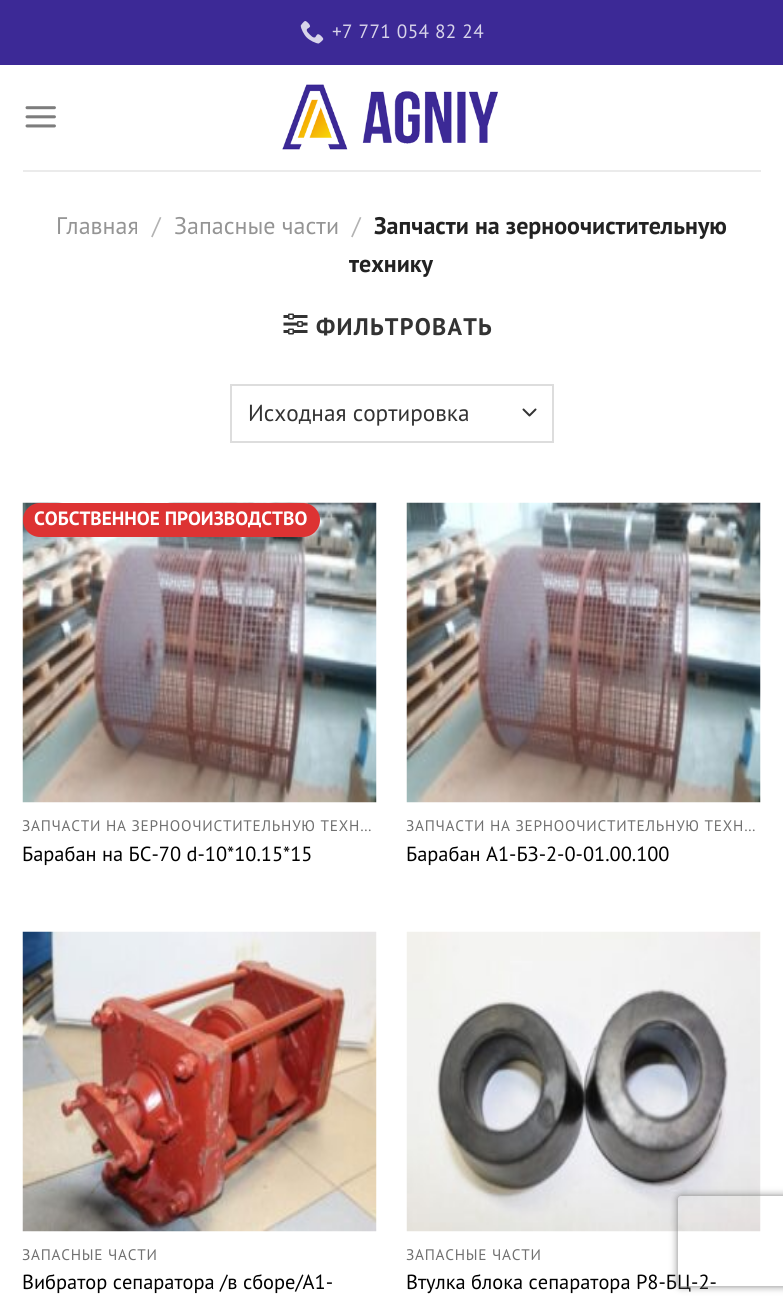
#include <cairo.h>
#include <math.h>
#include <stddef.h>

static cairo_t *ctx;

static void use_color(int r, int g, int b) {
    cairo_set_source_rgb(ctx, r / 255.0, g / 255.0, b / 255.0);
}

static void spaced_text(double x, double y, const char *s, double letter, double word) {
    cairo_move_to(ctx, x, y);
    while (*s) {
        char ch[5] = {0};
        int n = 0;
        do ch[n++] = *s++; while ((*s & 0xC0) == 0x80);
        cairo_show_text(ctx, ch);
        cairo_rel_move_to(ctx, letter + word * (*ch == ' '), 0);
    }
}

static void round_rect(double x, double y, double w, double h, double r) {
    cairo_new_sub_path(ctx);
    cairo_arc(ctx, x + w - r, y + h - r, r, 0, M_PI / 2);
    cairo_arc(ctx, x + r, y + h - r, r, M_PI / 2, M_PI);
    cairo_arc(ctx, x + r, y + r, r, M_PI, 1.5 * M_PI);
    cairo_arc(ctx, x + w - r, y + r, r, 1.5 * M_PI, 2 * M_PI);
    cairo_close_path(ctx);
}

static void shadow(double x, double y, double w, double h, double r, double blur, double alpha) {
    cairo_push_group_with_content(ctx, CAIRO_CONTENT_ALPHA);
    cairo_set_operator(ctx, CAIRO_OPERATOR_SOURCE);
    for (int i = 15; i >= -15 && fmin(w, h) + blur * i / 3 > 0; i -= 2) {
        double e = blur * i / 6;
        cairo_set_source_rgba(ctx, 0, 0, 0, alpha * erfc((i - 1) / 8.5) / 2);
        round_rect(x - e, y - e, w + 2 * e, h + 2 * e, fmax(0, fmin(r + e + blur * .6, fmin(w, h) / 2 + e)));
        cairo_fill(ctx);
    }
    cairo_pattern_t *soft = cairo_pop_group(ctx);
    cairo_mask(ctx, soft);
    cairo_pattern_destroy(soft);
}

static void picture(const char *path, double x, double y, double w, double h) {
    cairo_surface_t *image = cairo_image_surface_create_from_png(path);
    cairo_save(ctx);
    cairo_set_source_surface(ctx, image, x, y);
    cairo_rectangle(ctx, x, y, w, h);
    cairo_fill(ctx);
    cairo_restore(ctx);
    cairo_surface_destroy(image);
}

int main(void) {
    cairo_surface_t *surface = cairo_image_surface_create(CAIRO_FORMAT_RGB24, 783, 1306);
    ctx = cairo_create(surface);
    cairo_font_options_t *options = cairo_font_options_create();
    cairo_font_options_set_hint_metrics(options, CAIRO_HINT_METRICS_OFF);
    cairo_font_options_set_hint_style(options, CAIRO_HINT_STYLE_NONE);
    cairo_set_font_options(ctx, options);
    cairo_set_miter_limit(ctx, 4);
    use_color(255, 255, 255);
    cairo_paint(ctx);
    use_color(60, 41, 150);
    cairo_rectangle(ctx, 0, 0, 783, 65);
    cairo_fill(ctx);
    picture("img1.png", 300, 21, 24, 23);
    cairo_select_font_face(ctx, "PT Sans", CAIRO_FONT_SLANT_NORMAL, CAIRO_FONT_WEIGHT_NORMAL);
    cairo_set_font_size(ctx, 19.25);
    use_color(216, 212, 234);
    spaced_text(332, 38, "+7 771 054 82 24", 0.4, 0);
    picture("img2.png", 25, 106, 31, 22);
    picture("img3.png", 282, 84, 216, 66);
    use_color(235, 235, 235);
    cairo_rectangle(ctx, 23, 170, 738, 2);
    cairo_fill(ctx);
    cairo_set_font_size(ctx, 24);
    use_color(148, 148, 148);
    cairo_move_to(ctx, 56, 234);
    cairo_show_text(ctx, "Главная");
    use_color(178, 178, 178);
    cairo_move_to(ctx, 152, 234);
    cairo_show_text(ctx, "/");
    use_color(148, 148, 148);
    cairo_move_to(ctx, 174, 234);
    cairo_show_text(ctx, "Запасные части");
    use_color(178, 178, 178);
    cairo_move_to(ctx, 352, 234);
    cairo_show_text(ctx, "/");
    cairo_select_font_face(ctx, "PT Sans", CAIRO_FONT_SLANT_NORMAL, CAIRO_FONT_WEIGHT_BOLD);
    use_color(34, 34, 34);
    cairo_move_to(ctx, 374, 234);
    cairo_show_text(ctx, "Запчасти на зерноочистительную");
    cairo_move_to(ctx, 349, 272);
    cairo_show_text(ctx, "технику");
    picture("img4.png", 283, 313, 25, 22);
    use_color(51, 51, 51);
    spaced_text(316, 335, "ФИЛЬТРОВАТЬ", 1.25, 0);
    cairo_new_path(ctx);
    cairo_move_to(ctx, 523.5, 409.5);
    cairo_line_to(ctx, 529.5, 415.5);
    cairo_line_to(ctx, 535.5, 409.5);
    cairo_set_line_cap(ctx, CAIRO_LINE_CAP_ROUND);
    cairo_set_line_join(ctx, CAIRO_LINE_JOIN_ROUND);
    cairo_stroke(ctx);
    cairo_rectangle(ctx, 231, 385, 322, 57);
    use_color(221, 221, 221);
    cairo_set_line_cap(ctx, CAIRO_LINE_CAP_BUTT);
    cairo_set_line_join(ctx, CAIRO_LINE_JOIN_MITER);
    cairo_stroke(ctx);
    cairo_select_font_face(ctx, "PT Sans", CAIRO_FONT_SLANT_NORMAL, CAIRO_FONT_WEIGHT_NORMAL);
    cairo_set_font_size(ctx, 23.25);
    use_color(51, 51, 51);
    cairo_move_to(ctx, 248, 421);
    cairo_show_text(ctx, "Исходная сортировка");
    picture("img5.png", 22, 502, 355, 301);
    use_color(221, 51, 51);
    round_rect(23, 503, 297, 34, 17);
    cairo_fill(ctx);
    cairo_select_font_face(ctx, "PT Sans", CAIRO_FONT_SLANT_NORMAL, CAIRO_FONT_WEIGHT_BOLD);
    cairo_set_font_size(ctx, 19.25);
    use_color(255, 255, 255);
    cairo_move_to(ctx, 34, 525);
    cairo_show_text(ctx, "СОБСТВЕННОЕ ПРОИЗВОДСТВО");
    cairo_select_font_face(ctx, "PT Sans", CAIRO_FONT_SLANT_NORMAL, CAIRO_FONT_WEIGHT_NORMAL);
    cairo_set_font_size(ctx, 15.3);
    use_color(112, 112, 112);
    spaced_text(22, 831, "ЗАПЧАСТИ НА ЗЕРНООЧИСТИТЕЛЬНУЮ ТЕХН…", 0.75, 0);
    cairo_set_font_size(ctx, 20.4);
    use_color(0, 0, 0);
    cairo_move_to(ctx, 22, 861);
    cairo_show_text(ctx, "Барабан на БС-70 d-10*10.15*15");
    picture("img6.png", 406, 502, 355, 301);
    cairo_set_font_size(ctx, 15.3);
    use_color(112, 112, 112);
    spaced_text(406, 831, "ЗАПЧАСТИ НА ЗЕРНООЧИСТИТЕЛЬНУЮ ТЕХН…", 0.75, 0);
    cairo_set_font_size(ctx, 20.4);
    use_color(0, 0, 0);
    cairo_move_to(ctx, 406, 861);
    cairo_show_text(ctx, "Барабан А1-БЗ-2-0-01.00.100");
    picture("img7.png", 22, 931, 355, 301);
    cairo_set_font_size(ctx, 15.3);
    use_color(112, 112, 112);
    spaced_text(22, 1260, "ЗАПАСНЫЕ ЧАСТИ", 0.75, 0);
    cairo_set_font_size(ctx, 20.4);
    use_color(0, 0, 0);
    cairo_move_to(ctx, 22, 1289);
    cairo_show_text(ctx, "Вибратор сепаратора /в сборе/А1-");
    picture("img8.png", 406, 931, 355, 301);
    cairo_set_font_size(ctx, 15.3);
    use_color(112, 112, 112);
    spaced_text(406, 1260, "ЗАПАСНЫЕ ЧАСТИ", 0.75, 0);
    cairo_set_font_size(ctx, 20.4);
    use_color(0, 0, 0);
    cairo_move_to(ctx, 406, 1289);
    cairo_show_text(ctx, "Втулка блока сепаратора Р8-БЦ-2-");
    cairo_save(ctx);
    cairo_set_fill_rule(ctx, CAIRO_FILL_RULE_EVEN_ODD);
    cairo_new_path(ctx);
    cairo_move_to(ctx, 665, 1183);
    cairo_line_to(ctx, 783, 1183);
    cairo_line_to(ctx, 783, 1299);
    cairo_line_to(ctx, 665, 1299);
    cairo_close_path(ctx);
    cairo_move_to(ctx, 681, 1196);
    cairo_line_to(ctx, 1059, 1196);
    cairo_curve_to(ctx, 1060.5, 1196, 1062, 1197.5, 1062, 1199);
    cairo_line_to(ctx, 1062, 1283);
    cairo_curve_to(ctx, 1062, 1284.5, 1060.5, 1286, 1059, 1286);
    cairo_line_to(ctx, 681, 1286);
    cairo_curve_to(ctx, 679.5, 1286, 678, 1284.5, 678, 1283);
    cairo_line_to(ctx, 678, 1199);
    cairo_curve_to(ctx, 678, 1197.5, 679.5, 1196, 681, 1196);
    cairo_close_path(ctx);
    cairo_clip(ctx);
    use_color(128, 128, 128);
    shadow(678, 1196, 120, 90, 3, 4, 1);
    cairo_restore(ctx);
    cairo_surface_write_to_png(surface, "result.png");
    cairo_font_options_destroy(options);
    cairo_destroy(ctx);
    cairo_surface_destroy(surface);
    return 0;
}
